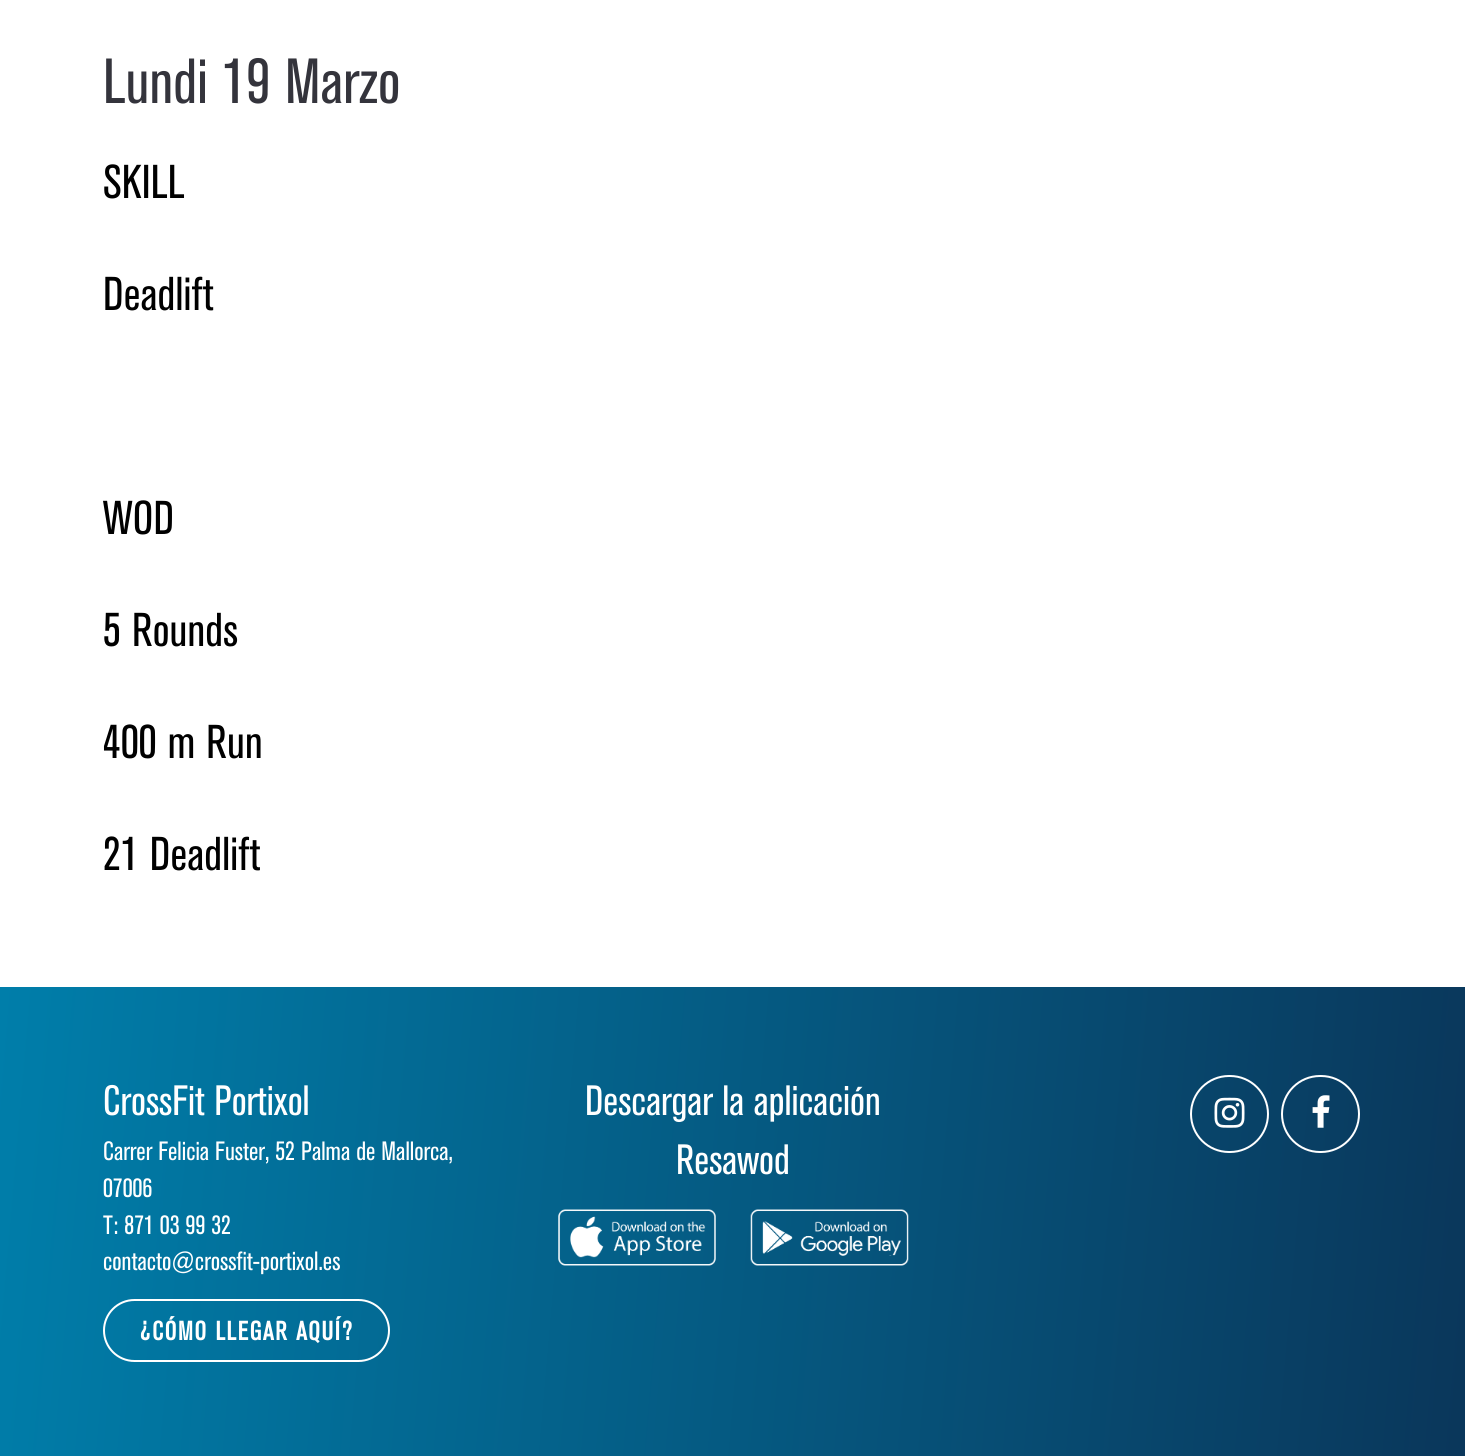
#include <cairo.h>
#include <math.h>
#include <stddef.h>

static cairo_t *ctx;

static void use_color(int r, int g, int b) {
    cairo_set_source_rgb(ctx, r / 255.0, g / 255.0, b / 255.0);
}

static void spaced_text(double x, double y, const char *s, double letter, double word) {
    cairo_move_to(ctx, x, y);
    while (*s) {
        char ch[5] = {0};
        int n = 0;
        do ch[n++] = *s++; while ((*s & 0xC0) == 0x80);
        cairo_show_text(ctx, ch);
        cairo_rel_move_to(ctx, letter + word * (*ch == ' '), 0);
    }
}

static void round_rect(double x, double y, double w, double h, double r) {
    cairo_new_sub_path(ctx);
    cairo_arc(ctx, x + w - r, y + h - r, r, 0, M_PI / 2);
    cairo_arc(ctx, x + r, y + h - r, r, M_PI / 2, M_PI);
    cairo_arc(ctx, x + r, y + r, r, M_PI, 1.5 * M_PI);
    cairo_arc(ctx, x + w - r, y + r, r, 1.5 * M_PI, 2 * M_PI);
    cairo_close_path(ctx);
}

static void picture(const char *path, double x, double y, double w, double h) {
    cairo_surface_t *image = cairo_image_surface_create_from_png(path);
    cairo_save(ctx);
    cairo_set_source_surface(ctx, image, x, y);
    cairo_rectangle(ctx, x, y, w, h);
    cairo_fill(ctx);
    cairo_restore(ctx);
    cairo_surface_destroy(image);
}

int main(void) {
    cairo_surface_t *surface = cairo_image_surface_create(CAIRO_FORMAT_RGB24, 1465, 1456);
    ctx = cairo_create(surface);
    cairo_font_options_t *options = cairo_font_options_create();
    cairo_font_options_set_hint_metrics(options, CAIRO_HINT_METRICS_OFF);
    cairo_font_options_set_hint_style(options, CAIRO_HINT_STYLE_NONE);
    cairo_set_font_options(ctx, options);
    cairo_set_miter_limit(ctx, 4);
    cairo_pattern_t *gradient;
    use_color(255, 255, 255);
    cairo_paint(ctx);
    cairo_select_font_face(ctx, "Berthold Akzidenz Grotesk", CAIRO_FONT_SLANT_NORMAL, CAIRO_FONT_WEIGHT_NORMAL);
    cairo_set_font_size(ctx, 63);
    use_color(52, 52, 60);
    spaced_text(103, 103, "Lundi 19 Marzo", 0.25, 0);
    cairo_set_font_size(ctx, 47);
    use_color(0, 0, 0);
    spaced_text(103, 198, "SKILL", 0.25, 0);
    spaced_text(103, 310, "Deadlift", 0.25, 0);
    spaced_text(103, 534, "WOD", 0.25, 0);
    spaced_text(103, 646, "5 Rounds", 0.25, 0);
    spaced_text(103, 758, "400 m Run", 0.25, 0);
    spaced_text(103, 870, "21 Deadlift", 0.25, 0);
    gradient = cairo_pattern_create_linear(-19, 1206, 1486, 1337);
    cairo_pattern_add_color_stop_rgba(gradient, 0, 0, 0.494, 0.667, 1);
    cairo_pattern_add_color_stop_rgba(gradient, 1, 0.039, 0.212, 0.353, 1);
    cairo_set_source(ctx, gradient);
    cairo_pattern_destroy(gradient);
    cairo_rectangle(ctx, 0, 987, 1465, 469);
    cairo_fill(ctx);
    cairo_set_font_size(ctx, 42);
    use_color(255, 255, 255);
    cairo_move_to(ctx, 103, 1115);
    cairo_show_text(ctx, "CrossFit Portixol");
    cairo_set_font_size(ctx, 26.25);
    cairo_move_to(ctx, 103, 1160);
    cairo_show_text(ctx, "Carrer Felicia Fuster, 52 Palma de Mallorca,");
    cairo_move_to(ctx, 103, 1197);
    cairo_show_text(ctx, "07006");
    cairo_move_to(ctx, 103, 1234);
    cairo_show_text(ctx, "T: 871 03 99 32");
    cairo_move_to(ctx, 103, 1270);
    cairo_show_text(ctx, "contacto@crossfit-portixol.es");
    round_rect(104, 1300, 285, 61, 30.5);
    cairo_stroke(ctx);
    cairo_select_font_face(ctx, "Berthold Akzidenz Grotesk", CAIRO_FONT_SLANT_NORMAL, CAIRO_FONT_WEIGHT_BOLD);
    spaced_text(140, 1340, "¿CÓMO LLEGAR AQUÍ?", 1.75, 0);
    cairo_select_font_face(ctx, "Berthold Akzidenz Grotesk", CAIRO_FONT_SLANT_NORMAL, CAIRO_FONT_WEIGHT_NORMAL);
    cairo_set_font_size(ctx, 42);
    cairo_move_to(ctx, 585, 1115);
    cairo_show_text(ctx, "Descargar la aplicación");
    cairo_move_to(ctx, 676, 1174);
    cairo_show_text(ctx, "Resawod");
    picture("img1.png", 558, 1209, 158, 57);
    picture("img2.png", 750, 1209, 159, 57);
    round_rect(1191, 1076, 77, 76, 38);
    cairo_stroke(ctx);
    picture("img3.png", 1214, 1097, 31, 31);
    round_rect(1282, 1076, 77, 76, 38);
    cairo_stroke(ctx);
    picture("img4.png", 1312, 1095, 18, 33);
    cairo_surface_write_to_png(surface, "result.png");
    cairo_font_options_destroy(options);
    cairo_destroy(ctx);
    cairo_surface_destroy(surface);
    return 0;
}
